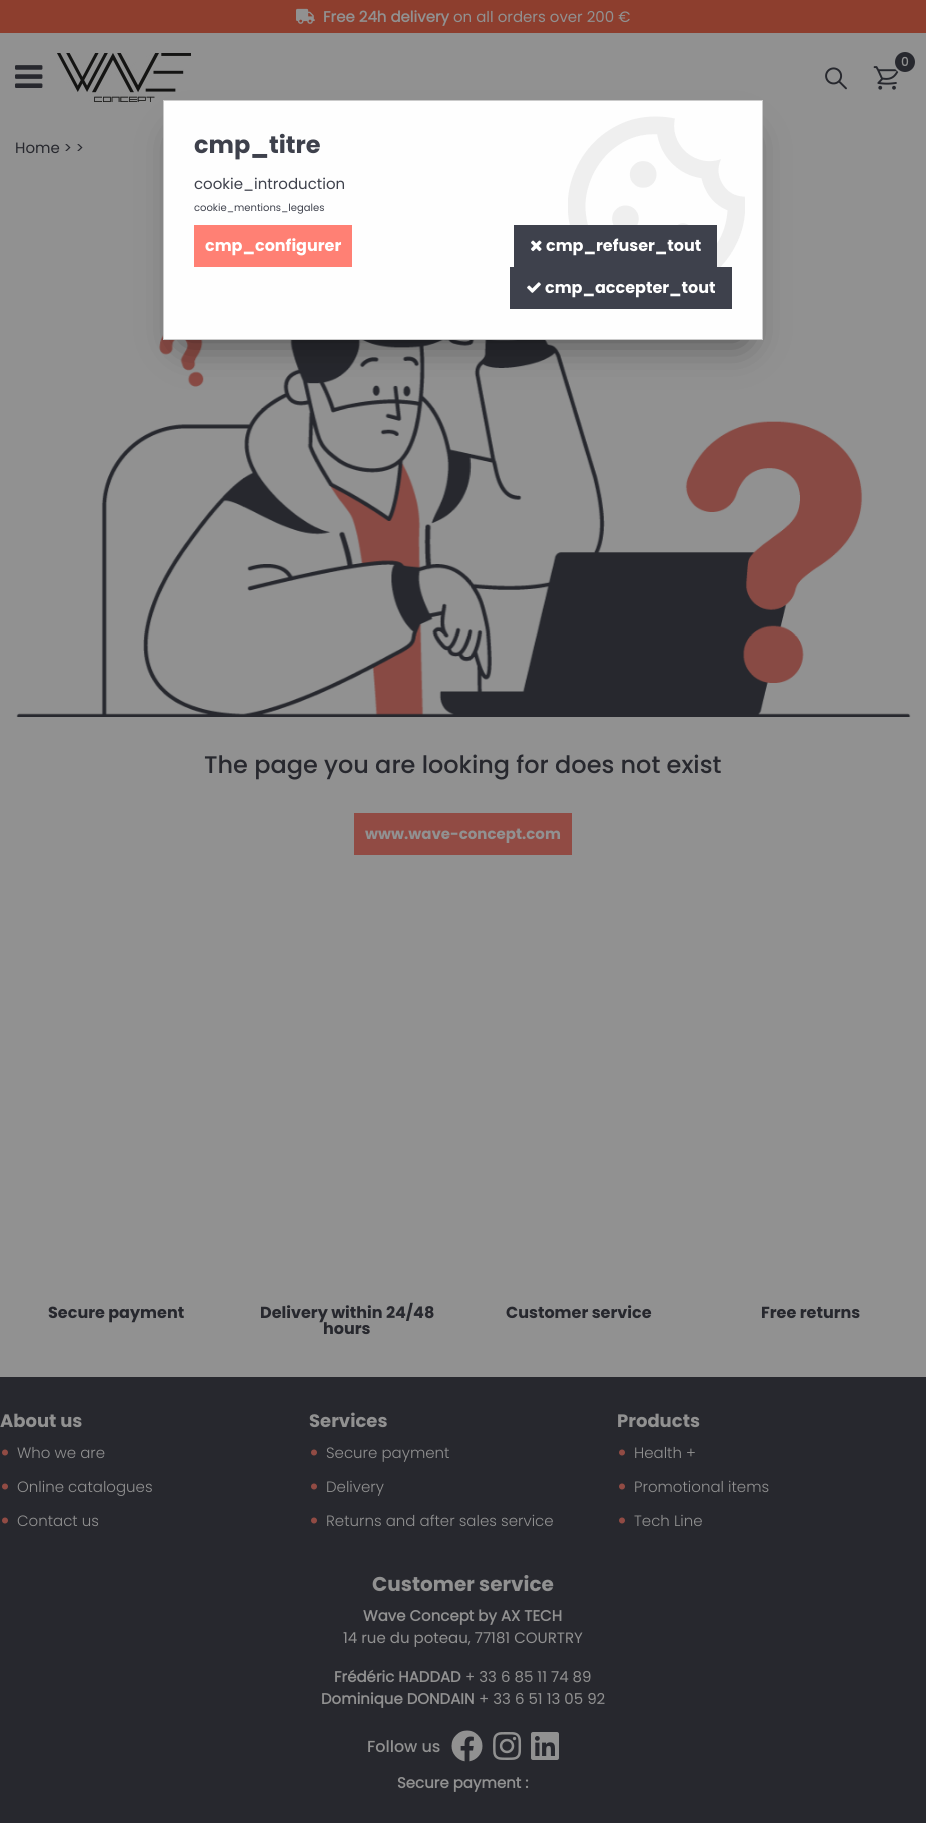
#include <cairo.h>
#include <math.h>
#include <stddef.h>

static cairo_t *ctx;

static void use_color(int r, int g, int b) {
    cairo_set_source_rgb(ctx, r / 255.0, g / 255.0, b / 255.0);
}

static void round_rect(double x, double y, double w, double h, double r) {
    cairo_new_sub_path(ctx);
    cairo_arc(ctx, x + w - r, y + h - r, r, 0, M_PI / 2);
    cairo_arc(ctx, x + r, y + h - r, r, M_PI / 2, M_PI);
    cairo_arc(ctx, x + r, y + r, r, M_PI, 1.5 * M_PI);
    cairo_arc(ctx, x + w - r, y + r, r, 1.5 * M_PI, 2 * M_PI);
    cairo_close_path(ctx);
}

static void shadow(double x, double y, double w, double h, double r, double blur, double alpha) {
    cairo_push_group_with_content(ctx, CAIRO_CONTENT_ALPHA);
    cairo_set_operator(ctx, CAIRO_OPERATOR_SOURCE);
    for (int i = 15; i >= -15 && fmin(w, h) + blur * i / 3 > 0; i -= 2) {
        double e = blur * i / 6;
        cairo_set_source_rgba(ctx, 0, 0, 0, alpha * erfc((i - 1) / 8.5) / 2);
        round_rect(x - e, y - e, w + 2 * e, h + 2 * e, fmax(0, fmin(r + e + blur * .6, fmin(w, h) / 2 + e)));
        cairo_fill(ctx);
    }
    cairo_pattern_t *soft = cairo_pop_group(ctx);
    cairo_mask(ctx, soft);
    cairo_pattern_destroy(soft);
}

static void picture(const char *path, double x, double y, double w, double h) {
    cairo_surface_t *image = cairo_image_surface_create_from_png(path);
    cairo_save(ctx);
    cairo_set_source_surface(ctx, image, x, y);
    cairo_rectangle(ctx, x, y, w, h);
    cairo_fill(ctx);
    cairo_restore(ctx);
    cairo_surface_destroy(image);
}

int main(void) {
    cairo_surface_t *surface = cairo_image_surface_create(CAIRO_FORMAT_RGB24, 926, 1823);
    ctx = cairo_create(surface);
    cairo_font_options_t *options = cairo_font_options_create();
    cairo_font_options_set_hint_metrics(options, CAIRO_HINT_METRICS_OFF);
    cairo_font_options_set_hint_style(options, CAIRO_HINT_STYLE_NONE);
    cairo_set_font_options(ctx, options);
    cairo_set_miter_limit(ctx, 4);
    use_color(145, 145, 145);
    cairo_paint(ctx);
    use_color(141, 62, 46);
    cairo_rectangle(ctx, 0, 0, 926, 33);
    cairo_fill(ctx);
    picture("img1.png", 296, 8, 19, 16);
    cairo_select_font_face(ctx, "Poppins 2", CAIRO_FONT_SLANT_NORMAL, CAIRO_FONT_WEIGHT_BOLD);
    cairo_set_font_size(ctx, 15);
    use_color(145, 145, 145);
    cairo_move_to(ctx, 323, 22);
    cairo_show_text(ctx, "Free 24h delivery");
    cairo_select_font_face(ctx, "Poppins", CAIRO_FONT_SLANT_NORMAL, CAIRO_FONT_WEIGHT_NORMAL);
    cairo_move_to(ctx, 453, 22);
    cairo_show_text(ctx, "on all orders over 200 €");
    picture("img2.png", 57, 53, 134, 49);
    picture("img3.png", 873, 66, 26, 24);
    use_color(39, 40, 46);
    cairo_arc(ctx, 905, 62, 11, 0, 2 * M_PI);
    cairo_fill_preserve(ctx);
    use_color(145, 145, 145);
    cairo_stroke(ctx);
    cairo_select_font_face(ctx, "Poppins 2", CAIRO_FONT_SLANT_NORMAL, CAIRO_FONT_WEIGHT_BOLD);
    cairo_set_font_size(ctx, 12);
    cairo_move_to(ctx, 901, 66);
    cairo_show_text(ctx, "0");
    picture("img4.png", 15, 65, 28, 23);
    picture("img5.png", 825, 67, 22, 23);
    cairo_select_font_face(ctx, "Poppins", CAIRO_FONT_SLANT_NORMAL, CAIRO_FONT_WEIGHT_NORMAL);
    cairo_set_font_size(ctx, 15);
    use_color(39, 40, 46);
    cairo_move_to(ctx, 15, 153);
    cairo_show_text(ctx, "Home > >");
    picture("img6.png", 16, 232, 895, 485);
    cairo_select_font_face(ctx, "Poppins Medium", CAIRO_FONT_SLANT_NORMAL, CAIRO_FONT_WEIGHT_NORMAL);
    cairo_set_font_size(ctx, 24);
    cairo_move_to(ctx, 204, 773);
    cairo_show_text(ctx, "The page you are looking for does not exist");
    use_color(145, 75, 68);
    cairo_rectangle(ctx, 354, 813, 218, 42);
    cairo_fill(ctx);
    cairo_select_font_face(ctx, "Poppins", CAIRO_FONT_SLANT_NORMAL, CAIRO_FONT_WEIGHT_BOLD);
    cairo_set_font_size(ctx, 15);
    use_color(145, 145, 145);
    cairo_move_to(ctx, 365, 839);
    cairo_show_text(ctx, "www.wave-concept.com");
    use_color(39, 40, 46);
    cairo_rectangle(ctx, 0, 1377, 926, 446);
    cairo_fill(ctx);
    cairo_set_font_size(ctx, 16);
    cairo_move_to(ctx, 48, 1318);
    cairo_show_text(ctx, "Secure payment");
    cairo_move_to(ctx, 260, 1318);
    cairo_show_text(ctx, "Delivery within 24/48");
    cairo_move_to(ctx, 323, 1334);
    cairo_show_text(ctx, "hours");
    cairo_move_to(ctx, 506, 1318);
    cairo_show_text(ctx, "Customer service");
    cairo_move_to(ctx, 761, 1318);
    cairo_show_text(ctx, "Free returns");
    cairo_set_font_size(ctx, 18);
    use_color(145, 145, 145);
    cairo_move_to(ctx, 0, 1427);
    cairo_show_text(ctx, "About us");
    picture("img7.png", 2, 1449, 6, 7);
    cairo_select_font_face(ctx, "Poppins Light", CAIRO_FONT_SLANT_NORMAL, CAIRO_FONT_WEIGHT_NORMAL);
    cairo_set_font_size(ctx, 15);
    cairo_move_to(ctx, 17, 1458);
    cairo_show_text(ctx, "Who we are");
    picture("img7.png", 2, 1483, 6, 7);
    cairo_move_to(ctx, 17, 1492);
    cairo_show_text(ctx, "Online catalogues");
    picture("img7.png", 2, 1517, 6, 7);
    cairo_move_to(ctx, 17, 1526);
    cairo_show_text(ctx, "Contact us");
    cairo_select_font_face(ctx, "Poppins", CAIRO_FONT_SLANT_NORMAL, CAIRO_FONT_WEIGHT_BOLD);
    cairo_set_font_size(ctx, 18);
    cairo_move_to(ctx, 309, 1427);
    cairo_show_text(ctx, "Services");
    picture("img7.png", 311, 1449, 6, 7);
    cairo_select_font_face(ctx, "Poppins Light", CAIRO_FONT_SLANT_NORMAL, CAIRO_FONT_WEIGHT_NORMAL);
    cairo_set_font_size(ctx, 15);
    cairo_move_to(ctx, 326, 1458);
    cairo_show_text(ctx, "Secure payment");
    picture("img7.png", 311, 1483, 6, 7);
    cairo_move_to(ctx, 326, 1492);
    cairo_show_text(ctx, "Delivery");
    picture("img7.png", 311, 1517, 6, 7);
    cairo_move_to(ctx, 326, 1526);
    cairo_show_text(ctx, "Returns and after sales service");
    cairo_select_font_face(ctx, "Poppins", CAIRO_FONT_SLANT_NORMAL, CAIRO_FONT_WEIGHT_BOLD);
    cairo_set_font_size(ctx, 18);
    cairo_move_to(ctx, 617, 1427);
    cairo_show_text(ctx, "Products");
    picture("img7.png", 619, 1449, 6, 7);
    cairo_select_font_face(ctx, "Poppins Light", CAIRO_FONT_SLANT_NORMAL, CAIRO_FONT_WEIGHT_NORMAL);
    cairo_set_font_size(ctx, 15);
    cairo_move_to(ctx, 634, 1458);
    cairo_show_text(ctx, "Health +");
    picture("img7.png", 619, 1483, 6, 7);
    cairo_move_to(ctx, 634, 1492);
    cairo_show_text(ctx, "Promotional items");
    picture("img7.png", 619, 1517, 6, 7);
    cairo_move_to(ctx, 634, 1526);
    cairo_show_text(ctx, "Tech Line");
    cairo_select_font_face(ctx, "Poppins", CAIRO_FONT_SLANT_NORMAL, CAIRO_FONT_WEIGHT_BOLD);
    cairo_set_font_size(ctx, 20);
    cairo_move_to(ctx, 372, 1591);
    cairo_show_text(ctx, "Customer service");
    cairo_select_font_face(ctx, "Poppins 2", CAIRO_FONT_SLANT_NORMAL, CAIRO_FONT_WEIGHT_BOLD);
    cairo_set_font_size(ctx, 15);
    cairo_move_to(ctx, 363, 1621);
    cairo_show_text(ctx, "Wave Concept by AX TECH");
    cairo_select_font_face(ctx, "Poppins", CAIRO_FONT_SLANT_NORMAL, CAIRO_FONT_WEIGHT_NORMAL);
    cairo_move_to(ctx, 343, 1643);
    cairo_show_text(ctx, "14 rue du poteau, 77181 COURTRY");
    cairo_select_font_face(ctx, "Poppins 2", CAIRO_FONT_SLANT_NORMAL, CAIRO_FONT_WEIGHT_BOLD);
    cairo_move_to(ctx, 334, 1682);
    cairo_show_text(ctx, "Frédéric HADDAD");
    cairo_select_font_face(ctx, "Poppins", CAIRO_FONT_SLANT_NORMAL, CAIRO_FONT_WEIGHT_NORMAL);
    cairo_move_to(ctx, 465, 1682);
    cairo_show_text(ctx, "+ 33 6 85 11 74 89");
    cairo_select_font_face(ctx, "Poppins 2", CAIRO_FONT_SLANT_NORMAL, CAIRO_FONT_WEIGHT_BOLD);
    cairo_move_to(ctx, 321, 1704);
    cairo_show_text(ctx, "Dominique DONDAIN");
    cairo_select_font_face(ctx, "Poppins", CAIRO_FONT_SLANT_NORMAL, CAIRO_FONT_WEIGHT_NORMAL);
    cairo_move_to(ctx, 479, 1704);
    cairo_show_text(ctx, "+ 33 6 51 13 05 92");
    cairo_select_font_face(ctx, "Poppins Medium", CAIRO_FONT_SLANT_NORMAL, CAIRO_FONT_WEIGHT_NORMAL);
    cairo_set_font_size(ctx, 16);
    cairo_move_to(ctx, 367, 1752);
    cairo_show_text(ctx, "Follow us");
    picture("img8.png", 451, 1730, 32, 32);
    picture("img9.png", 493, 1732, 29, 28);
    picture("img10.png", 531, 1732, 28, 28);
    cairo_select_font_face(ctx, "Poppins 2", CAIRO_FONT_SLANT_NORMAL, CAIRO_FONT_WEIGHT_BOLD);
    cairo_set_font_size(ctx, 15);
    cairo_move_to(ctx, 397, 1788);
    cairo_show_text(ctx, "Secure payment :");
    use_color(0, 0, 0);
    shadow(183, 140, 560, 200, 0, 20, 0.5);
    use_color(254, 254, 254);
    cairo_rectangle(ctx, 164, 101, 598, 238);
    cairo_fill(ctx);
    picture("img11.png", 568, 116, 177, 151);
    cairo_rectangle(ctx, 163.5, 100.5, 599, 239);
    use_color(202, 202, 202);
    cairo_set_line_width(ctx, 1);
    cairo_stroke(ctx);
    cairo_select_font_face(ctx, "Poppins", CAIRO_FONT_SLANT_NORMAL, CAIRO_FONT_WEIGHT_BOLD);
    cairo_set_font_size(ctx, 24);
    use_color(62, 65, 76);
    cairo_move_to(ctx, 194, 153);
    cairo_show_text(ctx, "cmp_titre");
    cairo_select_font_face(ctx, "Poppins", CAIRO_FONT_SLANT_NORMAL, CAIRO_FONT_WEIGHT_NORMAL);
    cairo_set_font_size(ctx, 15);
    cairo_move_to(ctx, 194, 189);
    cairo_show_text(ctx, "cookie_introduction");
    cairo_set_font_size(ctx, 10);
    cairo_move_to(ctx, 194, 211);
    cairo_show_text(ctx, "cookie_mentions_legales");
    use_color(255, 128, 116);
    cairo_rectangle(ctx, 194, 225, 158, 42);
    cairo_fill(ctx);
    cairo_select_font_face(ctx, "Poppins", CAIRO_FONT_SLANT_NORMAL, CAIRO_FONT_WEIGHT_BOLD);
    cairo_set_font_size(ctx, 16);
    use_color(255, 255, 255);
    cairo_move_to(ctx, 205, 251);
    cairo_show_text(ctx, "cmp_configurer");
    use_color(62, 65, 76);
    cairo_rectangle(ctx, 514, 225, 203, 42);
    cairo_fill(ctx);
    picture("img12.png", 531, 240, 11, 12);
    use_color(255, 255, 255);
    cairo_move_to(ctx, 546, 251);
    cairo_show_text(ctx, "cmp_refuser_tout");
    use_color(62, 65, 76);
    cairo_rectangle(ctx, 510, 267, 222, 42);
    cairo_fill(ctx);
    picture("img13.png", 527, 282, 14, 11);
    use_color(255, 255, 255);
    cairo_move_to(ctx, 545, 293);
    cairo_show_text(ctx, "cmp_accepter_tout");
    cairo_surface_write_to_png(surface, "result.png");
    cairo_font_options_destroy(options);
    cairo_destroy(ctx);
    cairo_surface_destroy(surface);
    return 0;
}
